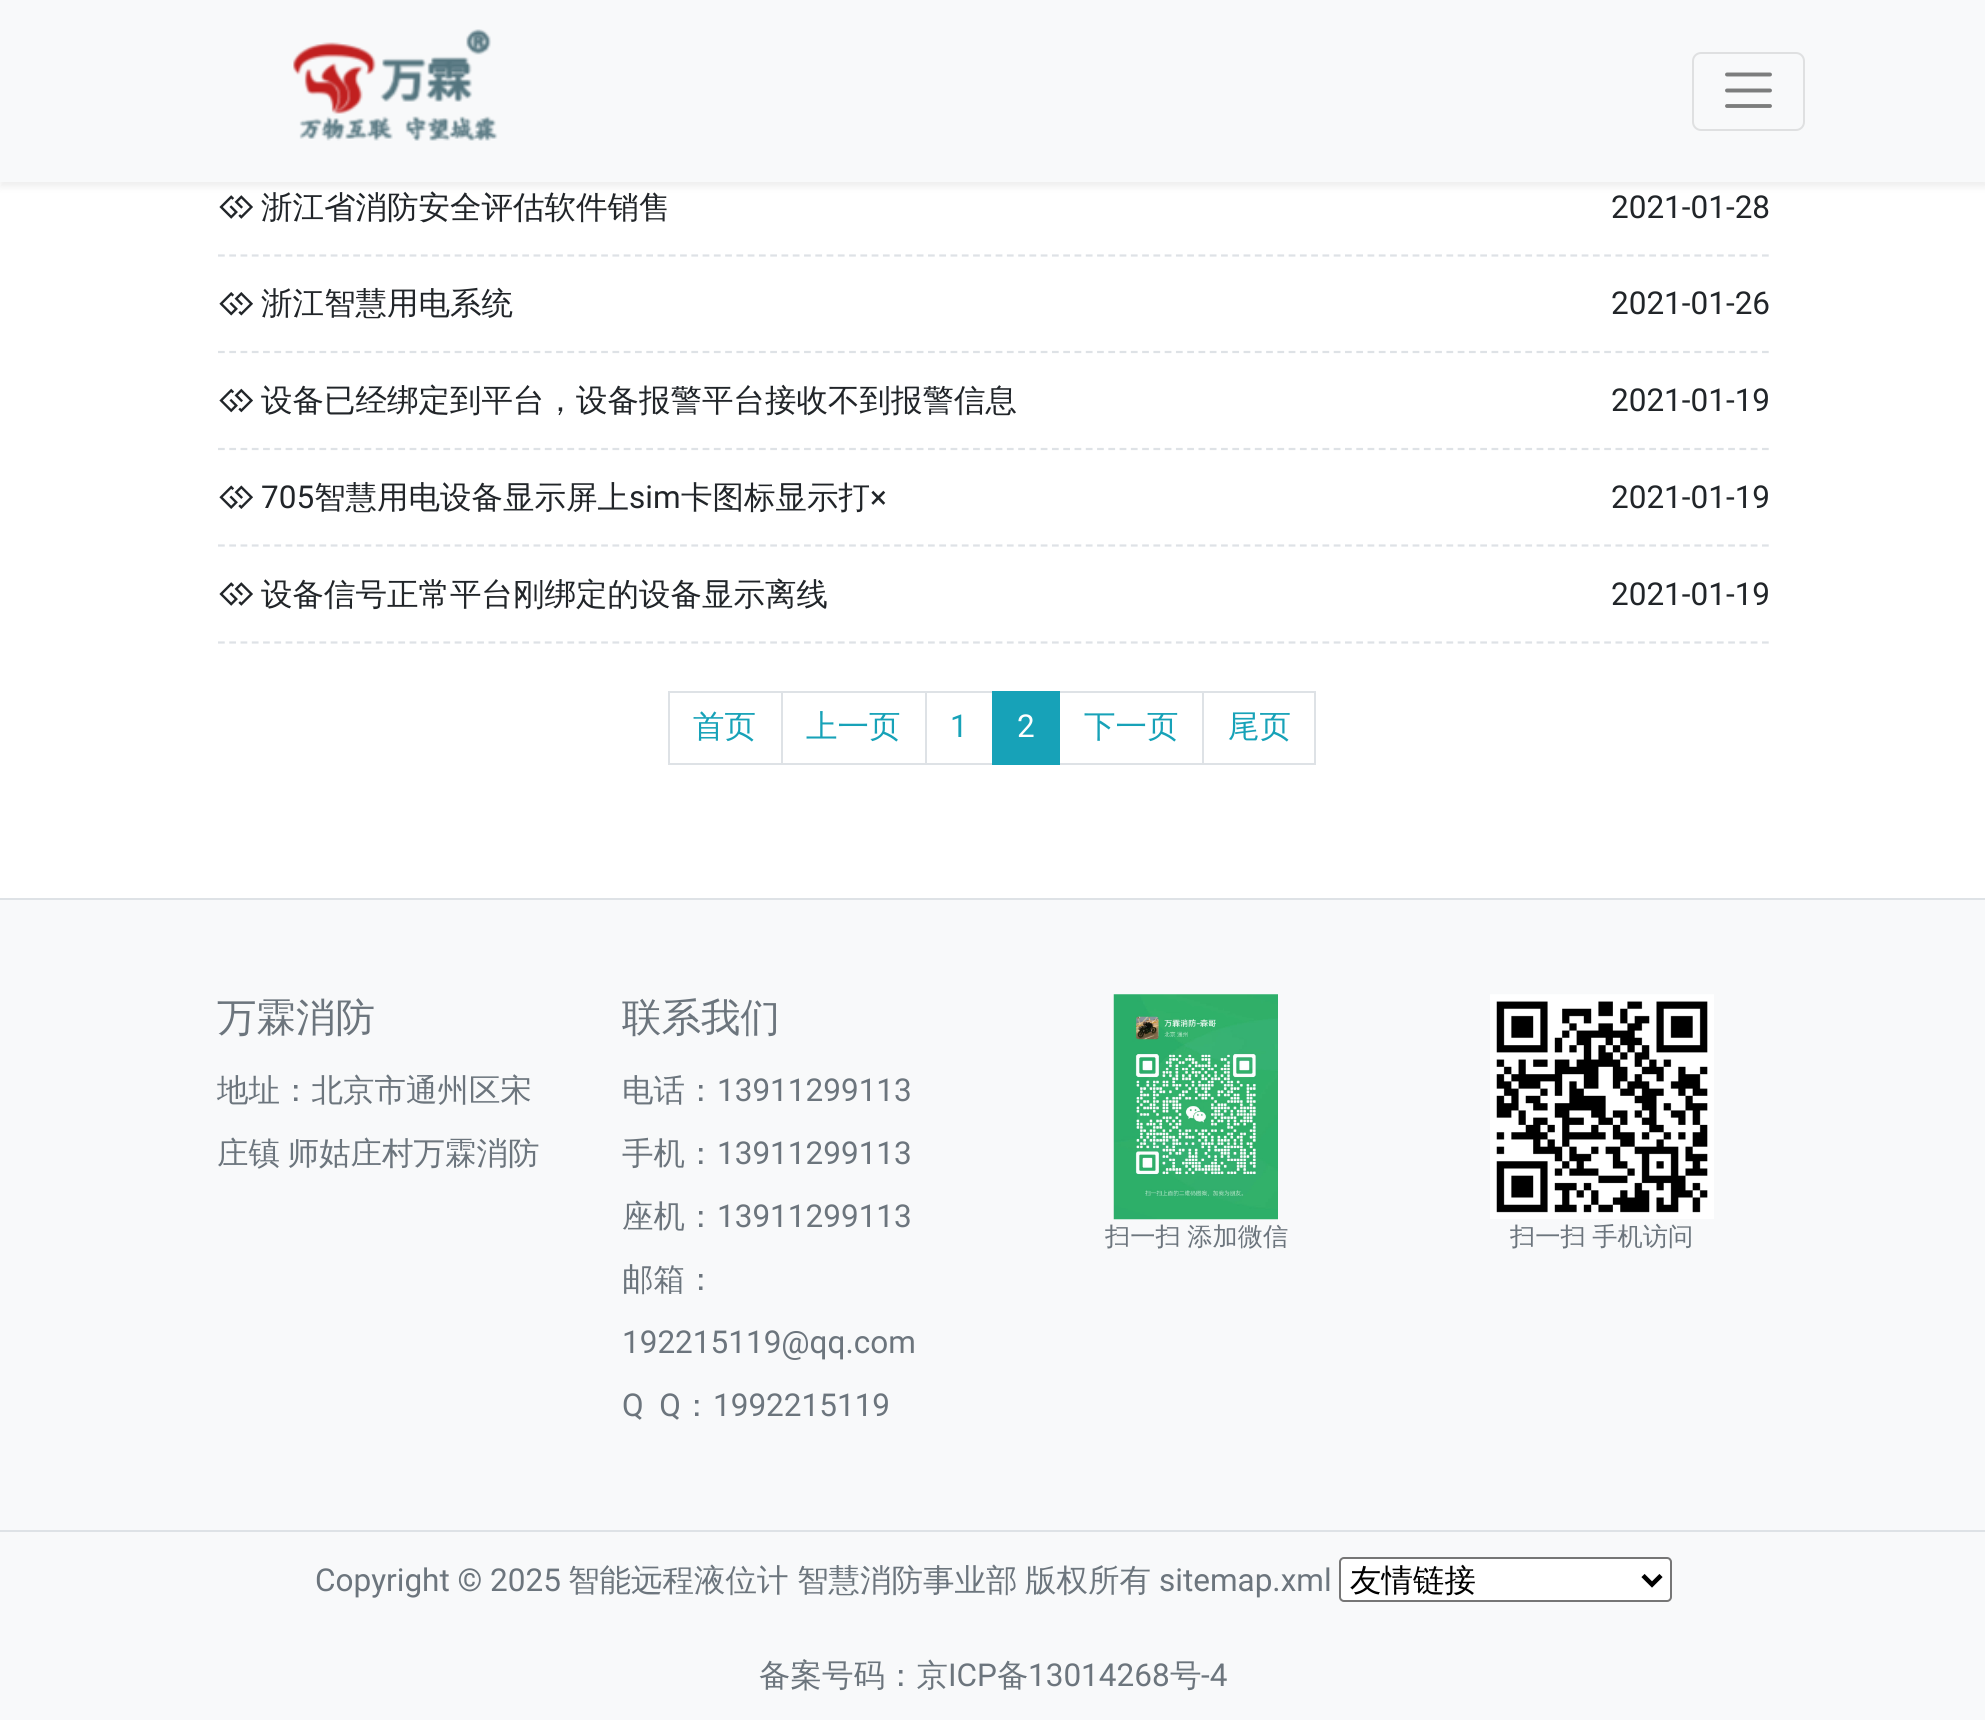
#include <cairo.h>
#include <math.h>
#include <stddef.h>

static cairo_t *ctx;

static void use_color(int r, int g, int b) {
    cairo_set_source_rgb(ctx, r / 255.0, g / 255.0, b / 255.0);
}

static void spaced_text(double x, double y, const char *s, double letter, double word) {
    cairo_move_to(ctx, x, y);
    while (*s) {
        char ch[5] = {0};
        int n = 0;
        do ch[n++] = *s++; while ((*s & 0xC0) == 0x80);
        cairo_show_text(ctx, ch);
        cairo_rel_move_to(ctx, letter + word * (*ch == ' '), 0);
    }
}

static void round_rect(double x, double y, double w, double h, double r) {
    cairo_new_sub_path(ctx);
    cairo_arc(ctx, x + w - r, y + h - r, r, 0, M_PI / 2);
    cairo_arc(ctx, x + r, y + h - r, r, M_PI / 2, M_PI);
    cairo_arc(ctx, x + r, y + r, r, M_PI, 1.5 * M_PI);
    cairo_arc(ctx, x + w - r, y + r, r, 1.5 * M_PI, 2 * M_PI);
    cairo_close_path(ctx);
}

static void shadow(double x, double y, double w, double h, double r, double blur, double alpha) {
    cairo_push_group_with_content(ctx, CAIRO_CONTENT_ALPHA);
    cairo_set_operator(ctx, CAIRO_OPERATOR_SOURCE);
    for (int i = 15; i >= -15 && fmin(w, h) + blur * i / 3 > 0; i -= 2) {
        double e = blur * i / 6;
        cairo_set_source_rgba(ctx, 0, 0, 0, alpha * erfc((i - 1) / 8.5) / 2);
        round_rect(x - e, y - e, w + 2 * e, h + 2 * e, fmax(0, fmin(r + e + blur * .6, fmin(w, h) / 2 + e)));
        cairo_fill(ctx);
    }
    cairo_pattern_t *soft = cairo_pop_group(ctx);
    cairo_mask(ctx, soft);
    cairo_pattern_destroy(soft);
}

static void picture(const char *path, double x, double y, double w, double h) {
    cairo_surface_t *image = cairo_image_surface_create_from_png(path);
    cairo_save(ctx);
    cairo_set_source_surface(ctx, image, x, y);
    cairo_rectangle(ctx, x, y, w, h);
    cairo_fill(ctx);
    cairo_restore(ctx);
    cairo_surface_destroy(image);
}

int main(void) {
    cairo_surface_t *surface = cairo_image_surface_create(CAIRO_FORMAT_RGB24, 1985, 1720);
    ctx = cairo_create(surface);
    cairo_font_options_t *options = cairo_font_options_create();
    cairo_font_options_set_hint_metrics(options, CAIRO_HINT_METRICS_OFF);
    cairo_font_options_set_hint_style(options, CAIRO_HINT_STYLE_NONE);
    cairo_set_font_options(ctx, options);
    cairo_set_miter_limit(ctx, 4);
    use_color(255, 255, 255);
    cairo_paint(ctx);
    picture("img2.png", 219, 195, 34, 24);
    use_color(0, 0, 0);
    shadow(0, 5, 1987, 182, 0, 4, 0.07);
    use_color(248, 249, 250);
    cairo_rectangle(ctx, 0, 0, 1985, 182);
    cairo_fill(ctx);
    picture("img1.png", 293, 29, 205, 112);
    round_rect(1693, 53, 111, 77, 8);
    use_color(223, 224, 225);
    cairo_stroke(ctx);
    cairo_new_path(ctx);
    cairo_move_to(ctx, 1727, 74.5);
    cairo_line_to(ctx, 1770, 74.5);
    cairo_move_to(ctx, 1727, 90.5);
    cairo_line_to(ctx, 1770, 90.5);
    cairo_move_to(ctx, 1727, 106);
    cairo_line_to(ctx, 1770, 106);
    use_color(124, 125, 125);
    cairo_set_line_width(ctx, 3.9);
    cairo_set_line_cap(ctx, CAIRO_LINE_CAP_ROUND);
    cairo_stroke(ctx);
    cairo_new_path(ctx);
    cairo_move_to(ctx, 218, 255.5);
    cairo_line_to(ctx, 1771, 255.5);
    use_color(222, 226, 230);
    cairo_set_line_width(ctx, 2.2);
    cairo_set_line_cap(ctx, CAIRO_LINE_CAP_BUTT);
    cairo_set_dash(ctx, (double[]){6.75, 4.52}, 2, 0);
    cairo_stroke(ctx);
    cairo_select_font_face(ctx, "WenQuanYi Zen Hei Medium", CAIRO_FONT_SLANT_NORMAL, CAIRO_FONT_WEIGHT_NORMAL);
    cairo_set_font_size(ctx, 31.5);
    use_color(33, 37, 41);
    cairo_move_to(ctx, 261, 218);
    cairo_show_text(ctx, "浙江省消防安全评估软件销售");
    cairo_select_font_face(ctx, "Roboto", CAIRO_FONT_SLANT_NORMAL, CAIRO_FONT_WEIGHT_NORMAL);
    cairo_move_to(ctx, 1611, 218);
    cairo_show_text(ctx, "2021-01-28");
    cairo_new_path(ctx);
    cairo_move_to(ctx, 218, 352);
    cairo_line_to(ctx, 1771, 352);
    use_color(222, 226, 230);
    cairo_stroke(ctx);
    picture("img3.png", 219, 292, 34, 24);
    cairo_select_font_face(ctx, "WenQuanYi Zen Hei Medium", CAIRO_FONT_SLANT_NORMAL, CAIRO_FONT_WEIGHT_NORMAL);
    use_color(33, 37, 41);
    cairo_move_to(ctx, 261, 314);
    cairo_show_text(ctx, "浙江智慧用电系统");
    cairo_select_font_face(ctx, "Roboto", CAIRO_FONT_SLANT_NORMAL, CAIRO_FONT_WEIGHT_NORMAL);
    cairo_move_to(ctx, 1611, 314);
    cairo_show_text(ctx, "2021-01-26");
    cairo_new_path(ctx);
    cairo_move_to(ctx, 218, 449);
    cairo_line_to(ctx, 1771, 449);
    use_color(222, 226, 230);
    cairo_stroke(ctx);
    picture("img4.png", 219, 388, 34, 25);
    cairo_select_font_face(ctx, "WenQuanYi Zen Hei Medium", CAIRO_FONT_SLANT_NORMAL, CAIRO_FONT_WEIGHT_NORMAL);
    use_color(33, 37, 41);
    cairo_move_to(ctx, 261, 411);
    cairo_show_text(ctx, "设备已经绑定到平台，设备报警平台接收不到报警信息");
    cairo_select_font_face(ctx, "Roboto", CAIRO_FONT_SLANT_NORMAL, CAIRO_FONT_WEIGHT_NORMAL);
    cairo_move_to(ctx, 1611, 411);
    cairo_show_text(ctx, "2021-01-19");
    cairo_new_path(ctx);
    cairo_move_to(ctx, 218, 545.5);
    cairo_line_to(ctx, 1771, 545.5);
    use_color(222, 226, 230);
    cairo_stroke(ctx);
    picture("img5.png", 219, 485, 34, 24);
    use_color(33, 37, 41);
    cairo_move_to(ctx, 261, 508);
    cairo_show_text(ctx, "705");
    cairo_select_font_face(ctx, "WenQuanYi Zen Hei Medium", CAIRO_FONT_SLANT_NORMAL, CAIRO_FONT_WEIGHT_NORMAL);
    cairo_move_to(ctx, 314, 508);
    cairo_show_text(ctx, "智慧用电设备显示屏上");
    cairo_select_font_face(ctx, "Roboto", CAIRO_FONT_SLANT_NORMAL, CAIRO_FONT_WEIGHT_NORMAL);
    cairo_move_to(ctx, 629, 508);
    cairo_show_text(ctx, "sim");
    cairo_select_font_face(ctx, "WenQuanYi Zen Hei Medium", CAIRO_FONT_SLANT_NORMAL, CAIRO_FONT_WEIGHT_NORMAL);
    cairo_move_to(ctx, 681, 508);
    cairo_show_text(ctx, "卡图标显示打");
    cairo_select_font_face(ctx, "Roboto", CAIRO_FONT_SLANT_NORMAL, CAIRO_FONT_WEIGHT_NORMAL);
    cairo_move_to(ctx, 870, 508);
    cairo_show_text(ctx, "×");
    cairo_move_to(ctx, 1611, 508);
    cairo_show_text(ctx, "2021-01-19");
    cairo_new_path(ctx);
    cairo_move_to(ctx, 218, 642.5);
    cairo_line_to(ctx, 1771, 642.5);
    use_color(222, 226, 230);
    cairo_stroke(ctx);
    picture("img2.png", 219, 582, 34, 24);
    cairo_select_font_face(ctx, "WenQuanYi Zen Hei Medium", CAIRO_FONT_SLANT_NORMAL, CAIRO_FONT_WEIGHT_NORMAL);
    use_color(33, 37, 41);
    cairo_move_to(ctx, 261, 605);
    cairo_show_text(ctx, "设备信号正常平台刚绑定的设备显示离线");
    cairo_select_font_face(ctx, "Roboto", CAIRO_FONT_SLANT_NORMAL, CAIRO_FONT_WEIGHT_NORMAL);
    cairo_move_to(ctx, 1611, 605);
    cairo_show_text(ctx, "2021-01-19");
    cairo_rectangle(ctx, 669, 692, 113, 72);
    use_color(222, 226, 230);
    cairo_set_line_width(ctx, 2);
    cairo_set_dash(ctx, NULL, 0, 0);
    cairo_stroke(ctx);
    cairo_select_font_face(ctx, "WenQuanYi Zen Hei Medium", CAIRO_FONT_SLANT_NORMAL, CAIRO_FONT_WEIGHT_NORMAL);
    use_color(23, 162, 184);
    cairo_move_to(ctx, 693, 737);
    cairo_show_text(ctx, "首页");
    cairo_rectangle(ctx, 782, 692, 144, 72);
    use_color(222, 226, 230);
    cairo_stroke(ctx);
    use_color(23, 162, 184);
    cairo_move_to(ctx, 806, 737);
    cairo_show_text(ctx, "上一页");
    cairo_rectangle(ctx, 926, 692, 68, 72);
    use_color(222, 226, 230);
    cairo_stroke(ctx);
    cairo_select_font_face(ctx, "Roboto", CAIRO_FONT_SLANT_NORMAL, CAIRO_FONT_WEIGHT_NORMAL);
    use_color(23, 162, 184);
    cairo_move_to(ctx, 950, 737);
    cairo_show_text(ctx, "1");
    cairo_rectangle(ctx, 1059, 692, 144, 72);
    use_color(222, 226, 230);
    cairo_stroke(ctx);
    use_color(23, 162, 184);
    cairo_rectangle(ctx, 992, 691, 68, 74);
    cairo_fill(ctx);
    use_color(255, 255, 255);
    cairo_move_to(ctx, 1017, 737);
    cairo_show_text(ctx, "2");
    cairo_select_font_face(ctx, "WenQuanYi Zen Hei Medium", CAIRO_FONT_SLANT_NORMAL, CAIRO_FONT_WEIGHT_NORMAL);
    use_color(23, 162, 184);
    cairo_move_to(ctx, 1084, 737);
    cairo_show_text(ctx, "下一页");
    cairo_rectangle(ctx, 1203, 692, 112, 72);
    use_color(222, 226, 230);
    cairo_stroke(ctx);
    use_color(23, 162, 184);
    cairo_move_to(ctx, 1228, 737);
    cairo_show_text(ctx, "尾页");
    use_color(248, 249, 250);
    cairo_rectangle(ctx, 0, 900, 1985, 820);
    cairo_fill(ctx);
    use_color(222, 226, 230);
    cairo_rectangle(ctx, 0, 898, 1985, 2);
    cairo_fill(ctx);
    cairo_set_font_size(ctx, 39.5);
    use_color(108, 117, 125);
    cairo_move_to(ctx, 217, 1031);
    cairo_show_text(ctx, "万霖消防");
    cairo_set_font_size(ctx, 31.5);
    cairo_move_to(ctx, 217, 1101);
    cairo_show_text(ctx, "地址：北京市通州区宋");
    spaced_text(217, 1164, "庄镇 师姑庄村万霖消防", 0, -2);
    cairo_set_font_size(ctx, 39.5);
    cairo_move_to(ctx, 622, 1031);
    cairo_show_text(ctx, "联系我们");
    cairo_set_font_size(ctx, 31.5);
    cairo_move_to(ctx, 622, 1101);
    cairo_show_text(ctx, "电话：");
    cairo_select_font_face(ctx, "Roboto", CAIRO_FONT_SLANT_NORMAL, CAIRO_FONT_WEIGHT_NORMAL);
    cairo_move_to(ctx, 717, 1101);
    cairo_show_text(ctx, "13911299113");
    cairo_select_font_face(ctx, "WenQuanYi Zen Hei Medium", CAIRO_FONT_SLANT_NORMAL, CAIRO_FONT_WEIGHT_NORMAL);
    cairo_move_to(ctx, 622, 1164);
    cairo_show_text(ctx, "手机：");
    cairo_select_font_face(ctx, "Roboto", CAIRO_FONT_SLANT_NORMAL, CAIRO_FONT_WEIGHT_NORMAL);
    cairo_move_to(ctx, 717, 1164);
    cairo_show_text(ctx, "13911299113");
    cairo_select_font_face(ctx, "WenQuanYi Zen Hei Medium", CAIRO_FONT_SLANT_NORMAL, CAIRO_FONT_WEIGHT_NORMAL);
    cairo_move_to(ctx, 622, 1227);
    cairo_show_text(ctx, "座机：");
    cairo_select_font_face(ctx, "Roboto", CAIRO_FONT_SLANT_NORMAL, CAIRO_FONT_WEIGHT_NORMAL);
    cairo_move_to(ctx, 717, 1227);
    cairo_show_text(ctx, "13911299113");
    cairo_select_font_face(ctx, "WenQuanYi Zen Hei Medium", CAIRO_FONT_SLANT_NORMAL, CAIRO_FONT_WEIGHT_NORMAL);
    cairo_move_to(ctx, 622, 1290);
    cairo_show_text(ctx, "邮箱：");
    cairo_select_font_face(ctx, "Roboto", CAIRO_FONT_SLANT_NORMAL, CAIRO_FONT_WEIGHT_NORMAL);
    cairo_move_to(ctx, 622, 1353);
    cairo_show_text(ctx, "192215119@qq.com");
    cairo_move_to(ctx, 622, 1416);
    cairo_show_text(ctx, "Q  Q");
    cairo_select_font_face(ctx, "WenQuanYi Zen Hei Medium", CAIRO_FONT_SLANT_NORMAL, CAIRO_FONT_WEIGHT_NORMAL);
    cairo_move_to(ctx, 681, 1416);
    cairo_show_text(ctx, "：");
    cairo_select_font_face(ctx, "Roboto", CAIRO_FONT_SLANT_NORMAL, CAIRO_FONT_WEIGHT_NORMAL);
    cairo_move_to(ctx, 713, 1416);
    cairo_show_text(ctx, "1992215119");
    picture("img6.png", 1113, 994, 165, 226);
    cairo_select_font_face(ctx, "WenQuanYi Zen Hei Medium", CAIRO_FONT_SLANT_NORMAL, CAIRO_FONT_WEIGHT_NORMAL);
    cairo_set_font_size(ctx, 25.25);
    spaced_text(1105, 1245, "扫一扫 添加微信", 0, -1);
    picture("img7.png", 1490, 994, 224, 225);
    spaced_text(1510, 1245, "扫一扫 手机访问", 0, -1);
    use_color(222, 226, 230);
    cairo_rectangle(ctx, 0, 1530, 1985, 2);
    cairo_fill(ctx);
    cairo_select_font_face(ctx, "Roboto", CAIRO_FONT_SLANT_NORMAL, CAIRO_FONT_WEIGHT_NORMAL);
    cairo_set_font_size(ctx, 31.5);
    use_color(108, 117, 125);
    cairo_move_to(ctx, 315, 1591);
    cairo_show_text(ctx, "Copyright © 2025");
    cairo_select_font_face(ctx, "WenQuanYi Zen Hei Medium", CAIRO_FONT_SLANT_NORMAL, CAIRO_FONT_WEIGHT_NORMAL);
    cairo_move_to(ctx, 568, 1591);
    cairo_show_text(ctx, "智能远程液位计");
    cairo_move_to(ctx, 797, 1591);
    cairo_show_text(ctx, "智慧消防事业部");
    cairo_move_to(ctx, 1025, 1591);
    cairo_show_text(ctx, "版权所有");
    cairo_select_font_face(ctx, "Roboto", CAIRO_FONT_SLANT_NORMAL, CAIRO_FONT_WEIGHT_NORMAL);
    cairo_move_to(ctx, 1159, 1591);
    cairo_show_text(ctx, "sitemap.xml");
    use_color(255, 255, 255);
    round_rect(1340, 1558, 331, 43, 4);
    cairo_fill_preserve(ctx);
    use_color(118, 118, 118);
    cairo_stroke(ctx);
    cairo_new_path(ctx);
    cairo_move_to(ctx, 1643, 1575.5);
    cairo_line_to(ctx, 1652, 1584.5);
    cairo_line_to(ctx, 1661, 1575.5);
    use_color(0, 0, 0);
    cairo_set_line_width(ctx, 4.5);
    cairo_stroke(ctx);
    cairo_select_font_face(ctx, "WenQuanYi Zen Hei Medium", CAIRO_FONT_SLANT_NORMAL, CAIRO_FONT_WEIGHT_NORMAL);
    cairo_move_to(ctx, 1350, 1591);
    cairo_show_text(ctx, "友情链接");
    use_color(108, 117, 125);
    cairo_move_to(ctx, 759, 1686);
    cairo_show_text(ctx, "备案号码：京");
    cairo_select_font_face(ctx, "Roboto", CAIRO_FONT_SLANT_NORMAL, CAIRO_FONT_WEIGHT_NORMAL);
    cairo_move_to(ctx, 948, 1686);
    cairo_show_text(ctx, "ICP");
    cairo_select_font_face(ctx, "WenQuanYi Zen Hei Medium", CAIRO_FONT_SLANT_NORMAL, CAIRO_FONT_WEIGHT_NORMAL);
    cairo_move_to(ctx, 997, 1686);
    cairo_show_text(ctx, "备");
    cairo_select_font_face(ctx, "Roboto", CAIRO_FONT_SLANT_NORMAL, CAIRO_FONT_WEIGHT_NORMAL);
    cairo_move_to(ctx, 1028, 1686);
    cairo_show_text(ctx, "13014268");
    cairo_select_font_face(ctx, "WenQuanYi Zen Hei Medium", CAIRO_FONT_SLANT_NORMAL, CAIRO_FONT_WEIGHT_NORMAL);
    cairo_move_to(ctx, 1170, 1686);
    cairo_show_text(ctx, "号");
    cairo_select_font_face(ctx, "Roboto", CAIRO_FONT_SLANT_NORMAL, CAIRO_FONT_WEIGHT_NORMAL);
    cairo_move_to(ctx, 1201, 1686);
    cairo_show_text(ctx, "-4");
    cairo_surface_write_to_png(surface, "result.png");
    cairo_font_options_destroy(options);
    cairo_destroy(ctx);
    cairo_surface_destroy(surface);
    return 0;
}
